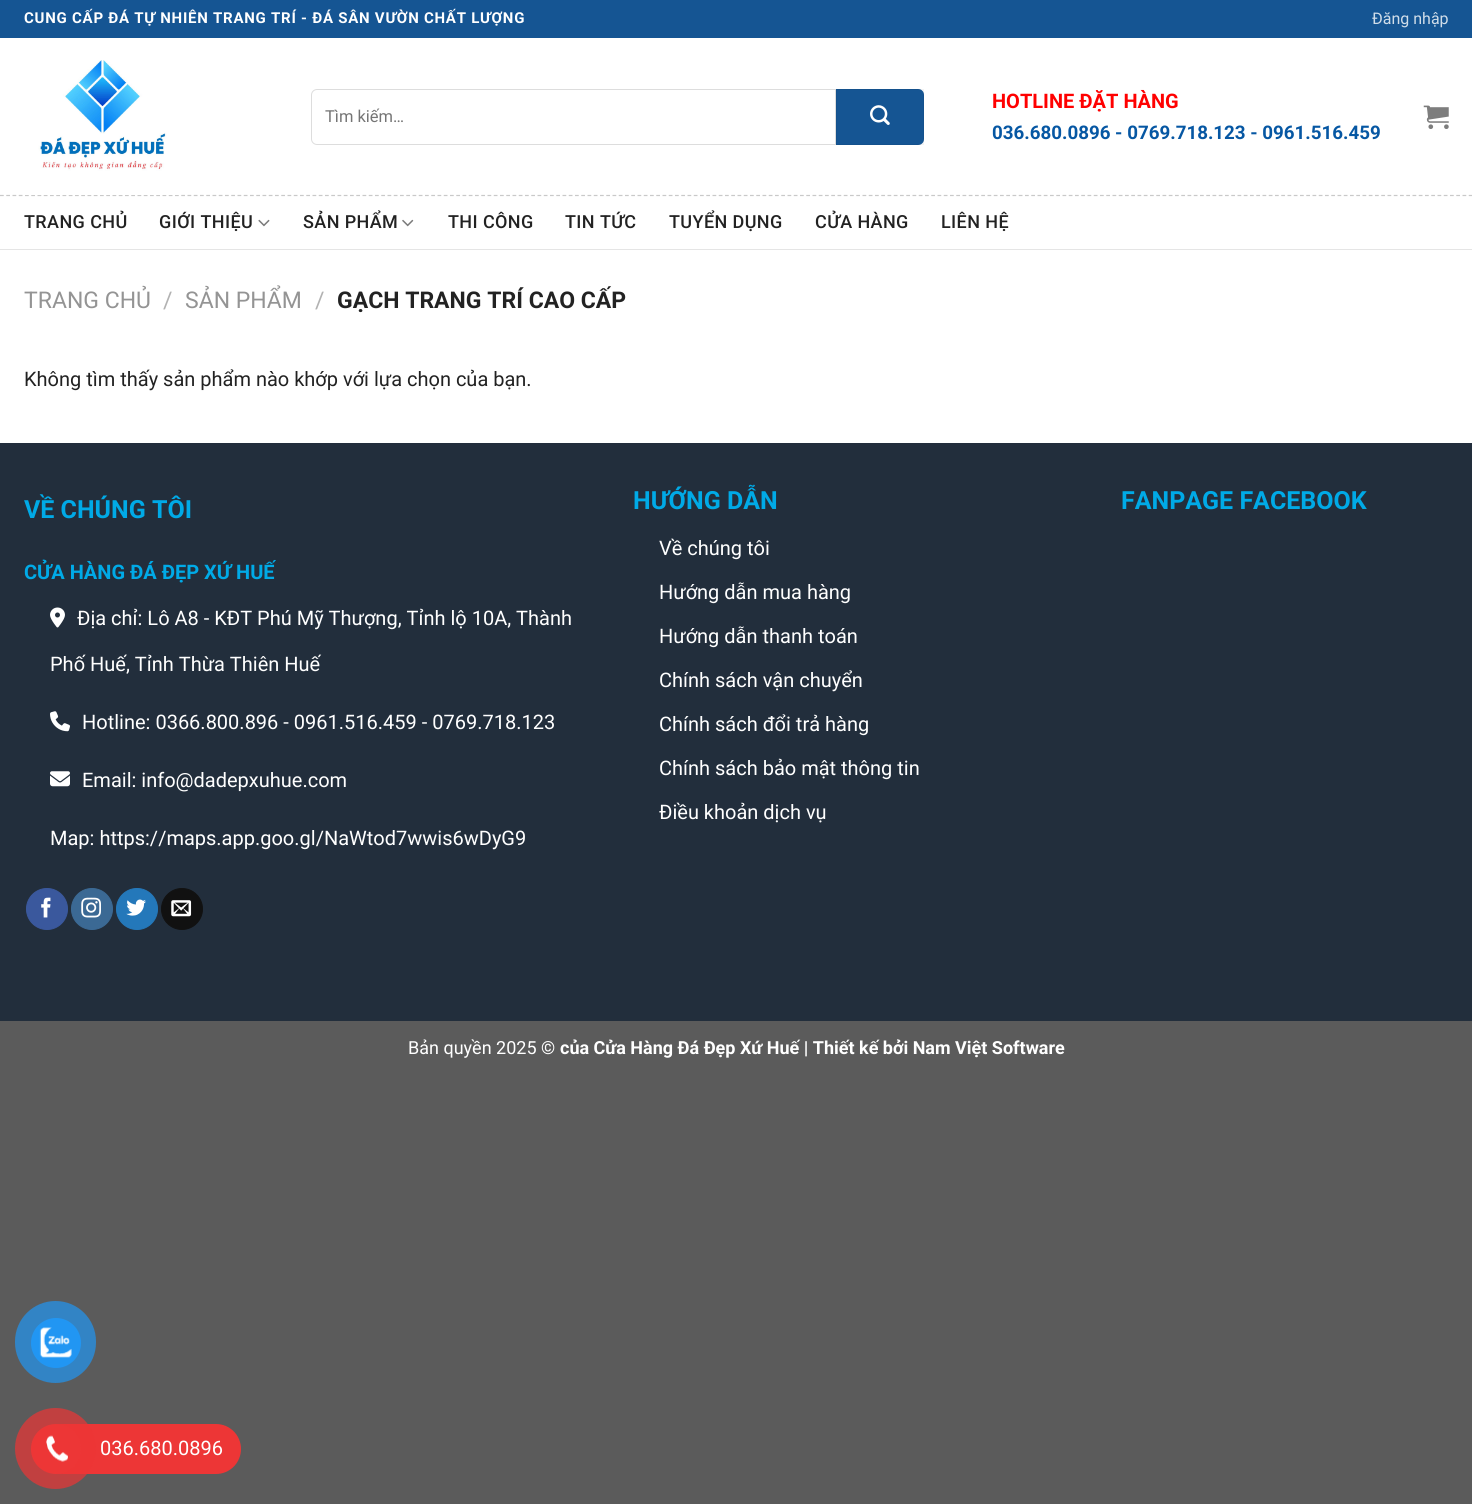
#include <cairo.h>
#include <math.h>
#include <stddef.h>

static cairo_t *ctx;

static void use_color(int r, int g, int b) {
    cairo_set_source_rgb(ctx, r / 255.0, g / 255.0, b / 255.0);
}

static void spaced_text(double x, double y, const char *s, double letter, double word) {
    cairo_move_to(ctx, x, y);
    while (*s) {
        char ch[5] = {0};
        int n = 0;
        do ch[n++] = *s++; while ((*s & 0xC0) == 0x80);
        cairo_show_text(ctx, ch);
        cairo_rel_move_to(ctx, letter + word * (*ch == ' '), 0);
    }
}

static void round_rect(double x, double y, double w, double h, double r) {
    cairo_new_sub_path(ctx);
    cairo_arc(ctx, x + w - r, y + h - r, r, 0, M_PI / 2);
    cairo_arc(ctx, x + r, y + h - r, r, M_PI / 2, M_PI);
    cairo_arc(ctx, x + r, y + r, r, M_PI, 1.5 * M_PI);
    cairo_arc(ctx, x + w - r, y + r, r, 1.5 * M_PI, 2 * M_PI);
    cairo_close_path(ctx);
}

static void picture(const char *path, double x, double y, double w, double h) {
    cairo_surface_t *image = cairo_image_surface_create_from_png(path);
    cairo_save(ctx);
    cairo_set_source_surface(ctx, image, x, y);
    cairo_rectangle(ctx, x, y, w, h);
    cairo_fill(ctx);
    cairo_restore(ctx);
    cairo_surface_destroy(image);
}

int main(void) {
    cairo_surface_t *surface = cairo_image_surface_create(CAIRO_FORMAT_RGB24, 1472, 1504);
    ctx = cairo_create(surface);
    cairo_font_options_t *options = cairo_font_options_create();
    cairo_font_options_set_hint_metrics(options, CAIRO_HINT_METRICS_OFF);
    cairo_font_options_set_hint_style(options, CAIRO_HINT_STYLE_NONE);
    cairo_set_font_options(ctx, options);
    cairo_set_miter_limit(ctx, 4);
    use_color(91, 91, 91);
    cairo_paint(ctx);
    use_color(255, 255, 255);
    cairo_rectangle(ctx, 0, 38, 1472, 405);
    cairo_fill(ctx);
    use_color(21, 85, 147);
    cairo_rectangle(ctx, 0, 0, 1472, 38);
    cairo_fill(ctx);
    cairo_select_font_face(ctx, "Roboto", CAIRO_FONT_SLANT_NORMAL, CAIRO_FONT_WEIGHT_BOLD);
    cairo_set_font_size(ctx, 15);
    use_color(255, 255, 255);
    spaced_text(24, 23, "CUNG CẤP ĐÁ TỰ NHIÊN TRANG TRÍ - ĐÁ SÂN VƯỜN CHẤT LƯỢNG", 0.75, 0);
    cairo_select_font_face(ctx, "Roboto", CAIRO_FONT_SLANT_NORMAL, CAIRO_FONT_WEIGHT_NORMAL);
    cairo_set_font_size(ctx, 16);
    use_color(208, 221, 233);
    cairo_move_to(ctx, 1372, 24);
    cairo_show_text(ctx, "Đăng nhập");
    cairo_new_path(ctx);
    cairo_move_to(ctx, 0, 195.5);
    cairo_line_to(ctx, 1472.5, 195.5);
    use_color(201, 201, 201);
    cairo_set_line_width(ctx, 1.2);
    cairo_set_dash(ctx, (double[]){3.75, 2.5}, 2, 0);
    cairo_stroke(ctx);
    picture("img1.png", 25, 60, 154, 135);
    cairo_new_path(ctx);
    cairo_move_to(ctx, 317, 89.5);
    cairo_line_to(ctx, 835.5, 89.5);
    cairo_line_to(ctx, 835.5, 144.5);
    cairo_line_to(ctx, 317, 144.5);
    cairo_curve_to(ctx, 314, 144.5, 311.5, 142, 311.5, 139);
    cairo_line_to(ctx, 311.5, 95);
    cairo_curve_to(ctx, 311.5, 92, 314, 89.5, 317, 89.5);
    cairo_close_path(ctx);
    use_color(221, 221, 221);
    cairo_set_line_width(ctx, 1);
    cairo_set_dash(ctx, NULL, 0, 0);
    cairo_stroke(ctx);
    cairo_set_font_size(ctx, 16.5);
    use_color(117, 117, 117);
    cairo_move_to(ctx, 325, 122);
    cairo_show_text(ctx, "Tìm kiếm…");
    use_color(21, 85, 147);
    cairo_new_path(ctx);
    cairo_move_to(ctx, 836, 89);
    cairo_line_to(ctx, 918, 89);
    cairo_curve_to(ctx, 921.5, 89, 924, 91.5, 924, 95);
    cairo_line_to(ctx, 924, 139);
    cairo_curve_to(ctx, 924, 142.5, 921.5, 145, 918, 145);
    cairo_line_to(ctx, 836, 145);
    cairo_close_path(ctx);
    cairo_fill(ctx);
    cairo_rectangle(ctx, 836.5, 89.5, 87, 55);
    cairo_set_source_rgba(ctx, 0, 0, 0, 0.05);
    cairo_stroke(ctx);
    picture("img2.png", 870, 105, 20, 20);
    cairo_select_font_face(ctx, "Roboto", CAIRO_FONT_SLANT_NORMAL, CAIRO_FONT_WEIGHT_BOLD);
    cairo_set_font_size(ctx, 20);
    use_color(255, 0, 0);
    cairo_move_to(ctx, 992, 108);
    cairo_show_text(ctx, "HOTLINE ĐẶT HÀNG");
    cairo_set_font_size(ctx, 18.75);
    use_color(6, 87, 163);
    cairo_move_to(ctx, 992, 139);
    cairo_show_text(ctx, "036.680.0896 - 0769.718.123 - 0961.516.459");
    picture("img3.png", 1423, 105, 26, 24);
    use_color(229, 229, 229);
    cairo_rectangle(ctx, 0, 249, 1472, 1);
    cairo_fill(ctx);
    cairo_select_font_face(ctx, "Roboto Medium", CAIRO_FONT_SLANT_NORMAL, CAIRO_FONT_WEIGHT_NORMAL);
    cairo_set_font_size(ctx, 18);
    use_color(34, 34, 34);
    spaced_text(24, 228, "TRANG CHỦ", 0.4, 0);
    spaced_text(159, 228, "GIỚI THIỆU", 0.4, 0);
    picture("img4.png", 258, 219, 12, 8);
    spaced_text(303, 228, "SẢN PHẨM", 0.4, 0);
    picture("img5.png", 402, 219, 12, 8);
    spaced_text(448, 228, "THI CÔNG", 0.4, 0);
    spaced_text(565, 228, "TIN TỨC", 0.4, 0);
    spaced_text(669, 228, "TUYỂN DỤNG", 0.4, 0);
    spaced_text(815, 228, "CỬA HÀNG", 0.4, 0);
    spaced_text(941, 228, "LIÊN HỆ", 0.4, 0);
    cairo_select_font_face(ctx, "Roboto", CAIRO_FONT_SLANT_NORMAL, CAIRO_FONT_WEIGHT_NORMAL);
    cairo_set_font_size(ctx, 23);
    use_color(148, 148, 148);
    cairo_move_to(ctx, 24, 308);
    cairo_show_text(ctx, "TRANG CHỦ");
    use_color(178, 178, 178);
    cairo_move_to(ctx, 163, 308);
    cairo_show_text(ctx, "/");
    use_color(148, 148, 148);
    cairo_move_to(ctx, 185, 308);
    cairo_show_text(ctx, "SẢN PHẨM");
    use_color(178, 178, 178);
    cairo_move_to(ctx, 315, 308);
    cairo_show_text(ctx, "/");
    cairo_select_font_face(ctx, "Roboto", CAIRO_FONT_SLANT_NORMAL, CAIRO_FONT_WEIGHT_BOLD);
    use_color(34, 34, 34);
    cairo_move_to(ctx, 337, 308);
    cairo_show_text(ctx, "GẠCH TRANG TRÍ CAO CẤP");
    cairo_select_font_face(ctx, "Roboto", CAIRO_FONT_SLANT_NORMAL, CAIRO_FONT_WEIGHT_NORMAL);
    cairo_set_font_size(ctx, 20);
    cairo_move_to(ctx, 24, 386);
    cairo_show_text(ctx, "Không tìm thấy sản phẩm nào khớp với lựa chọn của bạn.");
    use_color(34, 46, 60);
    cairo_rectangle(ctx, 0, 443, 1472, 578);
    cairo_fill(ctx);
    cairo_select_font_face(ctx, "Roboto", CAIRO_FONT_SLANT_NORMAL, CAIRO_FONT_WEIGHT_BOLD);
    cairo_set_font_size(ctx, 25);
    use_color(0, 170, 231);
    cairo_move_to(ctx, 24, 518);
    cairo_show_text(ctx, "VỀ CHÚNG TÔI");
    cairo_set_font_size(ctx, 20);
    cairo_move_to(ctx, 24, 579);
    cairo_show_text(ctx, "CỬA HÀNG ĐÁ ĐẸP XỨ HUẾ");
    picture("img6.png", 50, 607, 15, 21);
    cairo_select_font_face(ctx, "Roboto", CAIRO_FONT_SLANT_NORMAL, CAIRO_FONT_WEIGHT_NORMAL);
    use_color(255, 255, 255);
    cairo_move_to(ctx, 77, 625);
    cairo_show_text(ctx, "Địa chỉ: Lô A8 - KĐT Phú Mỹ Thượng, Tỉnh lộ 10A, Thành");
    cairo_move_to(ctx, 50, 671);
    cairo_show_text(ctx, "Phố Huế, Tỉnh Thừa Thiên Huế");
    picture("img7.png", 50, 711, 20, 21);
    cairo_move_to(ctx, 82, 729);
    cairo_show_text(ctx, "Hotline: 0366.800.896 - 0961.516.459 - 0769.718.123");
    picture("img8.png", 50, 771, 20, 16);
    cairo_move_to(ctx, 82, 787);
    cairo_show_text(ctx, "Email: info@dadepxuhue.com");
    cairo_move_to(ctx, 50, 845);
    cairo_show_text(ctx, "Map: https://maps.app.goo.gl/NaWtod7wwis6wDyG9");
    use_color(58, 88, 157);
    cairo_new_path(ctx);
    cairo_arc(ctx, 47, 909, 20.5, 0, 2 * M_PI);
    cairo_fill_preserve(ctx);
    cairo_stroke(ctx);
    picture("img9.png", 41, 897, 10, 21);
    use_color(59, 105, 148);
    cairo_arc(ctx, 92, 909, 20.5, 0, 2 * M_PI);
    cairo_fill_preserve(ctx);
    cairo_stroke(ctx);
    picture("img10.png", 81, 897, 20, 21);
    use_color(36, 120, 186);
    cairo_arc(ctx, 137, 909, 20.5, 0, 2 * M_PI);
    cairo_fill_preserve(ctx);
    cairo_stroke(ctx);
    picture("img11.png", 126, 899, 20, 17);
    use_color(17, 17, 17);
    cairo_arc(ctx, 182, 909, 20.5, 0, 2 * M_PI);
    cairo_fill_preserve(ctx);
    cairo_stroke(ctx);
    picture("img12.png", 171, 900, 21, 17);
    cairo_select_font_face(ctx, "Roboto", CAIRO_FONT_SLANT_NORMAL, CAIRO_FONT_WEIGHT_BOLD);
    cairo_set_font_size(ctx, 25);
    use_color(0, 170, 231);
    cairo_move_to(ctx, 633, 509);
    cairo_show_text(ctx, "HƯỚNG DẪN");
    cairo_select_font_face(ctx, "Roboto", CAIRO_FONT_SLANT_NORMAL, CAIRO_FONT_WEIGHT_NORMAL);
    cairo_set_font_size(ctx, 20);
    use_color(255, 255, 255);
    cairo_move_to(ctx, 659, 555);
    cairo_show_text(ctx, "Về chúng tôi");
    cairo_move_to(ctx, 659, 599);
    cairo_show_text(ctx, "Hướng dẫn mua hàng");
    cairo_move_to(ctx, 659, 643);
    cairo_show_text(ctx, "Hướng dẫn thanh toán");
    cairo_move_to(ctx, 659, 687);
    cairo_show_text(ctx, "Chính sách vận chuyển");
    cairo_move_to(ctx, 659, 731);
    cairo_show_text(ctx, "Chính sách đổi trả hàng");
    cairo_move_to(ctx, 659, 775);
    cairo_show_text(ctx, "Chính sách bảo mật thông tin");
    cairo_move_to(ctx, 659, 819);
    cairo_show_text(ctx, "Điều khoản dịch vụ");
    cairo_select_font_face(ctx, "Roboto", CAIRO_FONT_SLANT_NORMAL, CAIRO_FONT_WEIGHT_BOLD);
    cairo_set_font_size(ctx, 25);
    use_color(0, 170, 231);
    cairo_move_to(ctx, 1121, 509);
    cairo_show_text(ctx, "FANPAGE FACEBOOK");
    cairo_select_font_face(ctx, "Roboto", CAIRO_FONT_SLANT_NORMAL, CAIRO_FONT_WEIGHT_NORMAL);
    cairo_set_font_size(ctx, 18);
    use_color(255, 255, 255);
    cairo_move_to(ctx, 408, 1054);
    cairo_show_text(ctx, "Bản quyền 2025 ©");
    cairo_select_font_face(ctx, "Roboto", CAIRO_FONT_SLANT_NORMAL, CAIRO_FONT_WEIGHT_BOLD);
    cairo_move_to(ctx, 560, 1054);
    cairo_show_text(ctx, "của Cửa Hàng Đá Đẹp Xứ Huế | Thiết kế bởi Nam Việt Software");
    use_color(50, 132, 197);
    round_rect(15, 1301, 81, 82, 40.5);
    cairo_fill(ctx);
    use_color(33, 150, 243);
    cairo_arc(ctx, 56, 1343, 25, 0, 2 * M_PI);
    cairo_fill(ctx);
    picture("img13.png", 39, 1327, 33, 31);
    use_color(237, 54, 54);
    round_rect(38, 1424, 203, 50, 25);
    cairo_fill(ctx);
    cairo_set_source_rgba(ctx, 0.929, 0.212, 0.212, 0.7);
    cairo_arc(ctx, 55.5, 1448.5, 40.5, 0, 2 * M_PI);
    cairo_fill(ctx);
    use_color(237, 54, 54);
    cairo_arc(ctx, 56, 1449, 25, 0, 2 * M_PI);
    cairo_fill(ctx);
    picture("img14.png", 46, 1435, 22, 27);
    cairo_select_font_face(ctx, "Roboto", CAIRO_FONT_SLANT_NORMAL, CAIRO_FONT_WEIGHT_NORMAL);
    cairo_set_font_size(ctx, 20);
    use_color(255, 255, 255);
    cairo_move_to(ctx, 100, 1455);
    cairo_show_text(ctx, "036.680.0896");
    cairo_surface_write_to_png(surface, "result.png");
    cairo_font_options_destroy(options);
    cairo_destroy(ctx);
    cairo_surface_destroy(surface);
    return 0;
}
